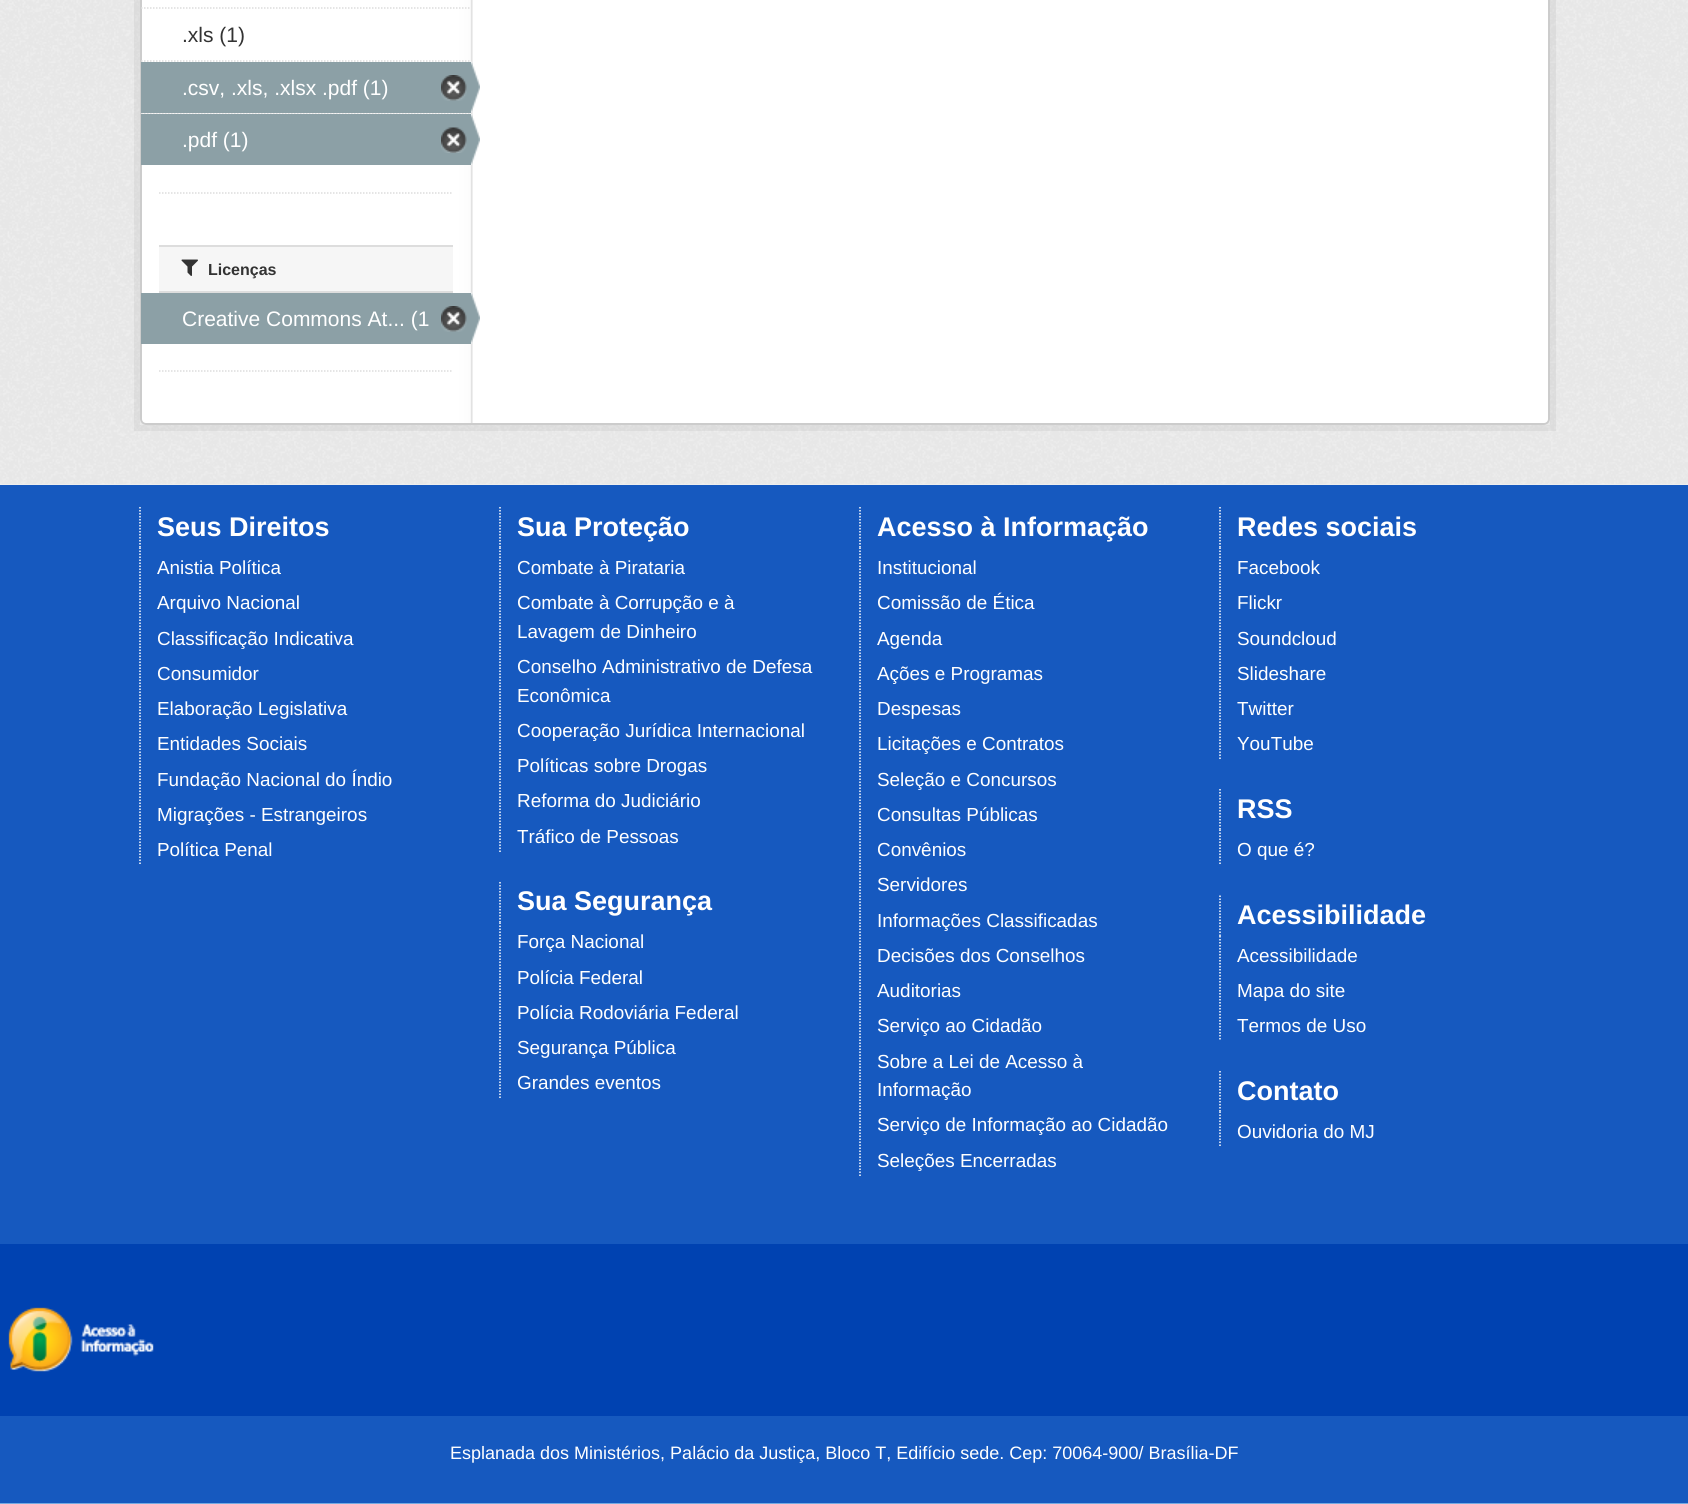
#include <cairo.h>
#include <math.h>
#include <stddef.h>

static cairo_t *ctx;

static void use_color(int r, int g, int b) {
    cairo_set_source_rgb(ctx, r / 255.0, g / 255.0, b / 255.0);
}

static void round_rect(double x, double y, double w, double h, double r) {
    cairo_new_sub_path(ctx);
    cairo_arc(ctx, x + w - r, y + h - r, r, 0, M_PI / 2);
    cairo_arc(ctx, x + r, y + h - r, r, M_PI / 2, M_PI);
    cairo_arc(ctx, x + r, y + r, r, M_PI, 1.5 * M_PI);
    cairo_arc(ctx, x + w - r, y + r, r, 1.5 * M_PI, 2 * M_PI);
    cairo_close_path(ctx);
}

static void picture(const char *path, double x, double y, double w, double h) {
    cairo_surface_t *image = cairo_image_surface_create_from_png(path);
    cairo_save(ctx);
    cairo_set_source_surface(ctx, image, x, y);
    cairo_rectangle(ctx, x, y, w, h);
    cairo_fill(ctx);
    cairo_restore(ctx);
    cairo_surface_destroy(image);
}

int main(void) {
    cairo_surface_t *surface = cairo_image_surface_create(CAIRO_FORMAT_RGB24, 1688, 1504);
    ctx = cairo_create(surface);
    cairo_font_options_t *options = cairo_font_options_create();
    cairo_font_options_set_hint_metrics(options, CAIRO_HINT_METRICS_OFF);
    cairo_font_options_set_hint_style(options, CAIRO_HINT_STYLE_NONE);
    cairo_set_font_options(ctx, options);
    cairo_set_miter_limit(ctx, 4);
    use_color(238, 238, 238);
    cairo_paint(ctx);
    picture("img1.png", 0, 0, 1688, 484);
    cairo_rectangle(ctx, 137, -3, 1416, 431);
    cairo_set_source_rgba(ctx, 0, 0, 0, 0.05);
    cairo_set_line_width(ctx, 6);
    cairo_stroke(ctx);
    use_color(255, 255, 255);
    round_rect(140, -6, 1410, 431, 6);
    cairo_fill(ctx);
    picture("img2.png", 141, 0, 332, 425);
    round_rect(141, -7, 1408, 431, 5);
    use_color(204, 204, 204);
    cairo_set_line_width(ctx, 2);
    cairo_stroke(ctx);
    cairo_new_path(ctx);
    cairo_move_to(ctx, 141, 8);
    cairo_line_to(ctx, 471, 8);
    use_color(221, 221, 221);
    cairo_set_line_width(ctx, 1.5);
    cairo_set_dash(ctx, (double[]){1.5, 1.5}, 2, 0);
    cairo_stroke(ctx);
    cairo_new_path(ctx);
    cairo_move_to(ctx, 141, 61);
    cairo_line_to(ctx, 471, 61);
    cairo_stroke(ctx);
    cairo_select_font_face(ctx, "Liberation Sans", CAIRO_FONT_SLANT_NORMAL, CAIRO_FONT_WEIGHT_NORMAL);
    cairo_set_font_size(ctx, 21);
    use_color(51, 51, 51);
    cairo_move_to(ctx, 182, 42);
    cairo_show_text(ctx, ".xls (1)");
    use_color(246, 246, 246);
    cairo_rectangle(ctx, 141, 113, 330, 1);
    cairo_fill(ctx);
    cairo_new_path(ctx);
    cairo_move_to(ctx, 141, 113);
    cairo_line_to(ctx, 471, 113);
    use_color(221, 221, 221);
    cairo_stroke(ctx);
    use_color(140, 160, 166);
    cairo_rectangle(ctx, 141, 62, 330, 51);
    cairo_fill(ctx);
    use_color(255, 255, 255);
    cairo_move_to(ctx, 182, 95);
    cairo_show_text(ctx, ".csv, .xls, .xlsx .pdf (1)");
    picture("img3.png", 441, 75, 26, 26);
    picture("img4.png", 471, 61, 9, 52);
    use_color(140, 160, 166);
    cairo_rectangle(ctx, 141, 114, 330, 51);
    cairo_fill(ctx);
    use_color(255, 255, 255);
    cairo_move_to(ctx, 182, 147);
    cairo_show_text(ctx, ".pdf (1)");
    picture("img5.png", 441, 127, 26, 26);
    picture("img6.png", 471, 114, 9, 51);
    cairo_new_path(ctx);
    cairo_move_to(ctx, 159, 193);
    cairo_line_to(ctx, 453, 193);
    use_color(221, 221, 221);
    cairo_stroke(ctx);
    use_color(246, 246, 246);
    cairo_rectangle(ctx, 159, 247, 294, 44);
    cairo_fill(ctx);
    use_color(221, 221, 221);
    cairo_rectangle(ctx, 159, 245, 294, 2);
    cairo_fill(ctx);
    cairo_rectangle(ctx, 159, 291, 294, 2);
    cairo_fill(ctx);
    picture("img7.png", 181, 259, 17, 17);
    cairo_select_font_face(ctx, "Liberation Sans", CAIRO_FONT_SLANT_NORMAL, CAIRO_FONT_WEIGHT_BOLD);
    cairo_set_font_size(ctx, 16);
    use_color(51, 51, 51);
    cairo_move_to(ctx, 208, 275);
    cairo_show_text(ctx, "Licenças");
    use_color(140, 160, 166);
    cairo_rectangle(ctx, 141, 293, 330, 51);
    cairo_fill(ctx);
    cairo_select_font_face(ctx, "Liberation Sans", CAIRO_FONT_SLANT_NORMAL, CAIRO_FONT_WEIGHT_NORMAL);
    cairo_set_font_size(ctx, 21);
    use_color(255, 255, 255);
    cairo_move_to(ctx, 182, 326);
    cairo_show_text(ctx, "Creative Commons At... (1");
    picture("img3.png", 441, 306, 26, 26);
    picture("img4.png", 471, 292, 9, 52);
    cairo_new_path(ctx);
    cairo_move_to(ctx, 159, 371);
    cairo_line_to(ctx, 453, 371);
    use_color(221, 221, 221);
    cairo_stroke(ctx);
    use_color(22, 89, 191);
    cairo_rectangle(ctx, 0, 485, 1688, 1018);
    cairo_fill(ctx);
    use_color(115, 170, 226);
    cairo_rectangle(ctx, 0, 1503, 1688, 1);
    cairo_fill(ctx);
    cairo_new_path(ctx);
    cairo_move_to(ctx, 140, 507);
    cairo_line_to(ctx, 140, 547.5);
    use_color(255, 255, 255);
    cairo_stroke(ctx);
    cairo_select_font_face(ctx, "Liberation Sans", CAIRO_FONT_SLANT_NORMAL, CAIRO_FONT_WEIGHT_BOLD);
    cairo_set_font_size(ctx, 27);
    cairo_move_to(ctx, 157, 536);
    cairo_show_text(ctx, "Seus Direitos");
    cairo_new_path(ctx);
    cairo_move_to(ctx, 140, 547.5);
    cairo_line_to(ctx, 140, 865.5);
    cairo_stroke(ctx);
    cairo_select_font_face(ctx, "Liberation Sans", CAIRO_FONT_SLANT_NORMAL, CAIRO_FONT_WEIGHT_NORMAL);
    cairo_set_font_size(ctx, 18.9);
    cairo_move_to(ctx, 157, 574);
    cairo_show_text(ctx, "Anistia Política");
    cairo_move_to(ctx, 157, 609);
    cairo_show_text(ctx, "Arquivo Nacional");
    cairo_move_to(ctx, 157, 645);
    cairo_show_text(ctx, "Classificação Indicativa");
    cairo_move_to(ctx, 157, 680);
    cairo_show_text(ctx, "Consumidor");
    cairo_move_to(ctx, 157, 715);
    cairo_show_text(ctx, "Elaboração Legislativa");
    cairo_move_to(ctx, 157, 750);
    cairo_show_text(ctx, "Entidades Sociais");
    cairo_move_to(ctx, 157, 786);
    cairo_show_text(ctx, "Fundação Nacional do Índio");
    cairo_move_to(ctx, 157, 821);
    cairo_show_text(ctx, "Migrações - Estrangeiros");
    cairo_move_to(ctx, 157, 856);
    cairo_show_text(ctx, "Política Penal");
    cairo_new_path(ctx);
    cairo_move_to(ctx, 500, 507);
    cairo_line_to(ctx, 500, 547.5);
    cairo_stroke(ctx);
    cairo_select_font_face(ctx, "Liberation Sans", CAIRO_FONT_SLANT_NORMAL, CAIRO_FONT_WEIGHT_BOLD);
    cairo_set_font_size(ctx, 27);
    cairo_move_to(ctx, 517, 536);
    cairo_show_text(ctx, "Sua Proteção");
    cairo_new_path(ctx);
    cairo_move_to(ctx, 500, 547.5);
    cairo_line_to(ctx, 500, 852);
    cairo_stroke(ctx);
    cairo_select_font_face(ctx, "Liberation Sans", CAIRO_FONT_SLANT_NORMAL, CAIRO_FONT_WEIGHT_NORMAL);
    cairo_set_font_size(ctx, 18.9);
    cairo_move_to(ctx, 517, 574);
    cairo_show_text(ctx, "Combate à Pirataria");
    cairo_move_to(ctx, 517, 609);
    cairo_show_text(ctx, "Combate à Corrupção e à");
    cairo_move_to(ctx, 517, 638);
    cairo_show_text(ctx, "Lavagem de Dinheiro");
    cairo_move_to(ctx, 517, 673);
    cairo_show_text(ctx, "Conselho Administrativo de Defesa");
    cairo_move_to(ctx, 517, 702);
    cairo_show_text(ctx, "Econômica");
    cairo_move_to(ctx, 517, 737);
    cairo_show_text(ctx, "Cooperação Jurídica Internacional");
    cairo_move_to(ctx, 517, 772);
    cairo_show_text(ctx, "Políticas sobre Drogas");
    cairo_move_to(ctx, 517, 807);
    cairo_show_text(ctx, "Reforma do Judiciário");
    cairo_move_to(ctx, 517, 843);
    cairo_show_text(ctx, "Tráfico de Pessoas");
    cairo_new_path(ctx);
    cairo_move_to(ctx, 500, 882);
    cairo_line_to(ctx, 500, 922.5);
    cairo_stroke(ctx);
    cairo_select_font_face(ctx, "Liberation Sans", CAIRO_FONT_SLANT_NORMAL, CAIRO_FONT_WEIGHT_BOLD);
    cairo_set_font_size(ctx, 27);
    cairo_move_to(ctx, 517, 910);
    cairo_show_text(ctx, "Sua Segurança");
    cairo_new_path(ctx);
    cairo_move_to(ctx, 500, 922.5);
    cairo_line_to(ctx, 500, 1098);
    cairo_stroke(ctx);
    cairo_select_font_face(ctx, "Liberation Sans", CAIRO_FONT_SLANT_NORMAL, CAIRO_FONT_WEIGHT_NORMAL);
    cairo_set_font_size(ctx, 18.9);
    cairo_move_to(ctx, 517, 948);
    cairo_show_text(ctx, "Força Nacional");
    cairo_move_to(ctx, 517, 984);
    cairo_show_text(ctx, "Polícia Federal");
    cairo_move_to(ctx, 517, 1019);
    cairo_show_text(ctx, "Polícia Rodoviária Federal");
    cairo_move_to(ctx, 517, 1054);
    cairo_show_text(ctx, "Segurança Pública");
    cairo_move_to(ctx, 517, 1089);
    cairo_show_text(ctx, "Grandes eventos");
    cairo_new_path(ctx);
    cairo_move_to(ctx, 860, 507);
    cairo_line_to(ctx, 860, 547.5);
    cairo_stroke(ctx);
    cairo_select_font_face(ctx, "Liberation Sans", CAIRO_FONT_SLANT_NORMAL, CAIRO_FONT_WEIGHT_BOLD);
    cairo_set_font_size(ctx, 27);
    cairo_move_to(ctx, 877, 536);
    cairo_show_text(ctx, "Acesso à Informação");
    cairo_new_path(ctx);
    cairo_move_to(ctx, 860, 547.5);
    cairo_line_to(ctx, 860, 1176);
    cairo_stroke(ctx);
    cairo_select_font_face(ctx, "Liberation Sans", CAIRO_FONT_SLANT_NORMAL, CAIRO_FONT_WEIGHT_NORMAL);
    cairo_set_font_size(ctx, 18.9);
    cairo_move_to(ctx, 877, 574);
    cairo_show_text(ctx, "Institucional");
    cairo_move_to(ctx, 877, 609);
    cairo_show_text(ctx, "Comissão de Ética");
    cairo_move_to(ctx, 877, 645);
    cairo_show_text(ctx, "Agenda");
    cairo_move_to(ctx, 877, 680);
    cairo_show_text(ctx, "Ações e Programas");
    cairo_move_to(ctx, 877, 715);
    cairo_show_text(ctx, "Despesas");
    cairo_move_to(ctx, 877, 750);
    cairo_show_text(ctx, "Licitações e Contratos");
    cairo_move_to(ctx, 877, 786);
    cairo_show_text(ctx, "Seleção e Concursos");
    cairo_move_to(ctx, 877, 821);
    cairo_show_text(ctx, "Consultas Públicas");
    cairo_move_to(ctx, 877, 856);
    cairo_show_text(ctx, "Convênios");
    cairo_move_to(ctx, 877, 891);
    cairo_show_text(ctx, "Servidores");
    cairo_move_to(ctx, 877, 927);
    cairo_show_text(ctx, "Informações Classificadas");
    cairo_move_to(ctx, 877, 962);
    cairo_show_text(ctx, "Decisões dos Conselhos");
    cairo_move_to(ctx, 877, 997);
    cairo_show_text(ctx, "Auditorias");
    cairo_move_to(ctx, 877, 1032);
    cairo_show_text(ctx, "Serviço ao Cidadão");
    cairo_move_to(ctx, 877, 1068);
    cairo_show_text(ctx, "Sobre a Lei de Acesso à");
    cairo_move_to(ctx, 877, 1096);
    cairo_show_text(ctx, "Informação");
    cairo_move_to(ctx, 877, 1131);
    cairo_show_text(ctx, "Serviço de Informação ao Cidadão");
    cairo_move_to(ctx, 877, 1167);
    cairo_show_text(ctx, "Seleções Encerradas");
    cairo_new_path(ctx);
    cairo_move_to(ctx, 1220, 507);
    cairo_line_to(ctx, 1220, 547.5);
    cairo_stroke(ctx);
    cairo_select_font_face(ctx, "Liberation Sans", CAIRO_FONT_SLANT_NORMAL, CAIRO_FONT_WEIGHT_BOLD);
    cairo_set_font_size(ctx, 27);
    cairo_move_to(ctx, 1237, 536);
    cairo_show_text(ctx, "Redes sociais");
    cairo_new_path(ctx);
    cairo_move_to(ctx, 1220, 547.5);
    cairo_line_to(ctx, 1220, 759);
    cairo_stroke(ctx);
    cairo_select_font_face(ctx, "Liberation Sans", CAIRO_FONT_SLANT_NORMAL, CAIRO_FONT_WEIGHT_NORMAL);
    cairo_set_font_size(ctx, 18.9);
    cairo_move_to(ctx, 1237, 574);
    cairo_show_text(ctx, "Facebook");
    cairo_move_to(ctx, 1237, 609);
    cairo_show_text(ctx, "Flickr");
    cairo_move_to(ctx, 1237, 645);
    cairo_show_text(ctx, "Soundcloud");
    cairo_move_to(ctx, 1237, 680);
    cairo_show_text(ctx, "Slideshare");
    cairo_move_to(ctx, 1237, 715);
    cairo_show_text(ctx, "Twitter");
    cairo_move_to(ctx, 1237, 750);
    cairo_show_text(ctx, "YouTube");
    cairo_new_path(ctx);
    cairo_move_to(ctx, 1220, 789);
    cairo_line_to(ctx, 1220, 829.5);
    cairo_stroke(ctx);
    cairo_select_font_face(ctx, "Liberation Sans", CAIRO_FONT_SLANT_NORMAL, CAIRO_FONT_WEIGHT_BOLD);
    cairo_set_font_size(ctx, 27);
    cairo_move_to(ctx, 1237, 818);
    cairo_show_text(ctx, "RSS");
    cairo_new_path(ctx);
    cairo_move_to(ctx, 1220, 829.5);
    cairo_line_to(ctx, 1220, 865.5);
    cairo_stroke(ctx);
    cairo_select_font_face(ctx, "Liberation Sans", CAIRO_FONT_SLANT_NORMAL, CAIRO_FONT_WEIGHT_NORMAL);
    cairo_set_font_size(ctx, 18.9);
    cairo_move_to(ctx, 1237, 856);
    cairo_show_text(ctx, "O que é?");
    cairo_new_path(ctx);
    cairo_move_to(ctx, 1220, 895.5);
    cairo_line_to(ctx, 1220, 936);
    cairo_stroke(ctx);
    cairo_select_font_face(ctx, "Liberation Sans", CAIRO_FONT_SLANT_NORMAL, CAIRO_FONT_WEIGHT_BOLD);
    cairo_set_font_size(ctx, 27);
    cairo_move_to(ctx, 1237, 924);
    cairo_show_text(ctx, "Acessibilidade");
    cairo_new_path(ctx);
    cairo_move_to(ctx, 1220, 936);
    cairo_line_to(ctx, 1220, 1041);
    cairo_stroke(ctx);
    cairo_select_font_face(ctx, "Liberation Sans", CAIRO_FONT_SLANT_NORMAL, CAIRO_FONT_WEIGHT_NORMAL);
    cairo_set_font_size(ctx, 18.9);
    cairo_move_to(ctx, 1237, 962);
    cairo_show_text(ctx, "Acessibilidade");
    cairo_move_to(ctx, 1237, 997);
    cairo_show_text(ctx, "Mapa do site");
    cairo_move_to(ctx, 1237, 1032);
    cairo_show_text(ctx, "Termos de Uso");
    cairo_new_path(ctx);
    cairo_move_to(ctx, 1220, 1071);
    cairo_line_to(ctx, 1220, 1111.5);
    cairo_stroke(ctx);
    cairo_select_font_face(ctx, "Liberation Sans", CAIRO_FONT_SLANT_NORMAL, CAIRO_FONT_WEIGHT_BOLD);
    cairo_set_font_size(ctx, 27);
    cairo_move_to(ctx, 1237, 1100);
    cairo_show_text(ctx, "Contato");
    cairo_new_path(ctx);
    cairo_move_to(ctx, 1220, 1111.5);
    cairo_line_to(ctx, 1220, 1147.5);
    cairo_stroke(ctx);
    cairo_select_font_face(ctx, "Liberation Sans", CAIRO_FONT_SLANT_NORMAL, CAIRO_FONT_WEIGHT_NORMAL);
    cairo_set_font_size(ctx, 18.9);
    cairo_move_to(ctx, 1237, 1138);
    cairo_show_text(ctx, "Ouvidoria do MJ");
    use_color(0, 66, 177);
    cairo_rectangle(ctx, 0, 1244, 1688, 172);
    cairo_fill(ctx);
    picture("img8.png", 8, 1307, 146, 65);
    cairo_set_font_size(ctx, 18);
    use_color(255, 255, 255);
    cairo_move_to(ctx, 450, 1459);
    cairo_show_text(ctx, "Esplanada dos Ministérios, Palácio da Justiça, Bloco T, Edifício sede. Cep: 70064-900/ Brasília-DF");
    cairo_surface_write_to_png(surface, "result.png");
    cairo_font_options_destroy(options);
    cairo_destroy(ctx);
    cairo_surface_destroy(surface);
    return 0;
}
